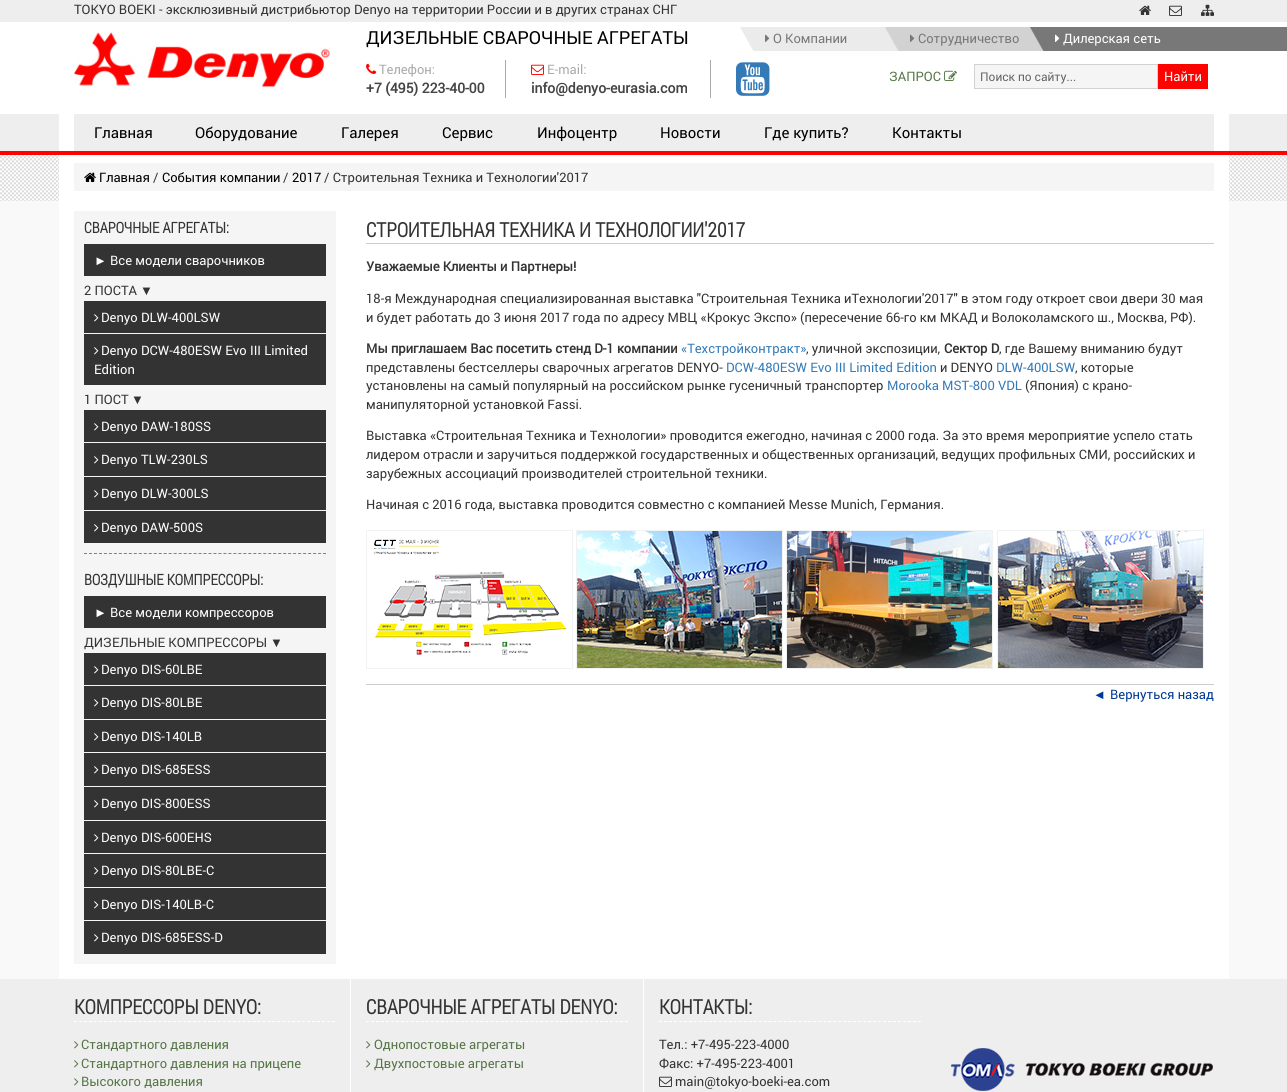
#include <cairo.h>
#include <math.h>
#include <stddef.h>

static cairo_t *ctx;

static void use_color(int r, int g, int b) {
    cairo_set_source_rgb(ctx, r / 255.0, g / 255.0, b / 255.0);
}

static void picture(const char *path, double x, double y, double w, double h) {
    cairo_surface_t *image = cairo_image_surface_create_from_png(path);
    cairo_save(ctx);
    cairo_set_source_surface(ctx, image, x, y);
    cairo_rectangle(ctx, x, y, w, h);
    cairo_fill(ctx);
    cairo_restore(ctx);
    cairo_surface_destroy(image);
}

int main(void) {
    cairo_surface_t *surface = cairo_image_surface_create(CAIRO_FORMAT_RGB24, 1287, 1092);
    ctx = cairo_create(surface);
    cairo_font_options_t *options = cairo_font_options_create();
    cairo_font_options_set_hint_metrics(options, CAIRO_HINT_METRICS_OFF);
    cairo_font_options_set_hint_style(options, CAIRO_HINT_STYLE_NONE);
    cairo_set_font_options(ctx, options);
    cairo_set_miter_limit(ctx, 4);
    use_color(255, 255, 255);
    cairo_paint(ctx);
    use_color(238, 238, 238);
    cairo_rectangle(ctx, 0, 0, 1287, 22);
    cairo_fill(ctx);
    cairo_select_font_face(ctx, "Roboto", CAIRO_FONT_SLANT_NORMAL, CAIRO_FONT_WEIGHT_NORMAL);
    cairo_set_font_size(ctx, 13);
    use_color(51, 51, 51);
    cairo_move_to(ctx, 74, 14);
    cairo_show_text(ctx, "TOKYO BOEKI - эксклюзивный дистрибьютор Denyo на территории России и в других странах СНГ");
    picture("img1.png", 1139, 5, 12, 10);
    picture("img2.png", 1169, 5, 13, 11);
    picture("img3.png", 1201, 4, 13, 12);
    picture("img4.png", 74, 32, 256, 55);
    cairo_set_font_size(ctx, 18);
    use_color(0, 0, 0);
    cairo_move_to(ctx, 366, 44);
    cairo_show_text(ctx, "ДИЗЕЛЬНЫЕ СВАРОЧНЫЕ АГРЕГАТЫ");
    use_color(170, 170, 170);
    cairo_rectangle(ctx, 505, 60, 1, 38);
    cairo_fill(ctx);
    picture("img5.png", 366, 63, 11, 11);
    cairo_set_font_size(ctx, 13);
    cairo_move_to(ctx, 379, 74);
    cairo_show_text(ctx, "Телефон:");
    cairo_select_font_face(ctx, "Roboto", CAIRO_FONT_SLANT_NORMAL, CAIRO_FONT_WEIGHT_BOLD);
    cairo_set_font_size(ctx, 14);
    use_color(68, 68, 68);
    cairo_move_to(ctx, 366, 93);
    cairo_show_text(ctx, "+7 (495) 223-40-00");
    use_color(170, 170, 170);
    cairo_rectangle(ctx, 710, 60, 1, 38);
    cairo_fill(ctx);
    picture("img6.png", 531, 64, 13, 11);
    cairo_select_font_face(ctx, "Roboto", CAIRO_FONT_SLANT_NORMAL, CAIRO_FONT_WEIGHT_NORMAL);
    cairo_set_font_size(ctx, 13);
    cairo_move_to(ctx, 547, 74);
    cairo_show_text(ctx, "E-mail:");
    cairo_select_font_face(ctx, "Roboto", CAIRO_FONT_SLANT_NORMAL, CAIRO_FONT_WEIGHT_BOLD);
    cairo_set_font_size(ctx, 14);
    use_color(68, 68, 68);
    cairo_move_to(ctx, 531, 93);
    cairo_show_text(ctx, "info@denyo-eurasia.com");
    picture("img7.png", 736, 62, 34, 34);
    cairo_select_font_face(ctx, "Roboto", CAIRO_FONT_SLANT_NORMAL, CAIRO_FONT_WEIGHT_NORMAL);
    cairo_set_font_size(ctx, 13);
    use_color(85, 117, 70);
    cairo_move_to(ctx, 889, 81);
    cairo_show_text(ctx, "ЗАПРОС");
    picture("img8.png", 944, 70, 13, 11);
    use_color(245, 245, 245);
    cairo_rectangle(ctx, 974.5, 64.5, 183, 24);
    cairo_fill_preserve(ctx);
    use_color(210, 210, 210);
    cairo_set_line_width(ctx, 1);
    cairo_stroke(ctx);
    cairo_set_font_size(ctx, 12);
    use_color(102, 102, 102);
    cairo_move_to(ctx, 980, 81);
    cairo_show_text(ctx, "Поиск по сайту...");
    use_color(254, 2, 0);
    cairo_rectangle(ctx, 1158, 64, 50, 25);
    cairo_fill(ctx);
    cairo_set_font_size(ctx, 13);
    use_color(255, 255, 255);
    cairo_move_to(ctx, 1164, 81);
    cairo_show_text(ctx, "Найти");
    use_color(120, 120, 120);
    cairo_rectangle(ctx, 1050, 27, 237, 24);
    cairo_fill(ctx);
    picture("img9.png", 740, 27, 20, 24);
    use_color(235, 235, 235);
    cairo_rectangle(ctx, 760, 27, 125, 24);
    cairo_fill(ctx);
    picture("img10.png", 885, 27, 20, 24);
    picture("img11.png", 765, 34, 5, 8);
    use_color(120, 120, 120);
    cairo_move_to(ctx, 773, 43);
    cairo_show_text(ctx, "О Компании");
    use_color(210, 210, 210);
    cairo_rectangle(ctx, 905, 27, 125, 24);
    cairo_fill(ctx);
    picture("img12.png", 1030, 27, 20, 24);
    picture("img13.png", 910, 34, 5, 8);
    use_color(120, 120, 120);
    cairo_move_to(ctx, 918, 43);
    cairo_show_text(ctx, "Сотрудничество");
    picture("img14.png", 1055, 34, 5, 8);
    use_color(255, 255, 255);
    cairo_move_to(ctx, 1063, 43);
    cairo_show_text(ctx, "Дилерская сеть");
    use_color(238, 238, 238);
    cairo_rectangle(ctx, 0, 114, 1287, 37);
    cairo_fill(ctx);
    use_color(255, 255, 255);
    cairo_rectangle(ctx, 59, 114, 1170, 37);
    cairo_fill(ctx);
    use_color(238, 238, 238);
    cairo_rectangle(ctx, 74, 114, 1140, 37);
    cairo_fill(ctx);
    cairo_set_font_size(ctx, 15);
    use_color(0, 0, 0);
    cairo_move_to(ctx, 94, 138);
    cairo_show_text(ctx, "Главная");
    cairo_move_to(ctx, 195, 138);
    cairo_show_text(ctx, "Оборудование");
    cairo_move_to(ctx, 341, 138);
    cairo_show_text(ctx, "Галерея");
    cairo_move_to(ctx, 442, 138);
    cairo_show_text(ctx, "Сервис");
    cairo_move_to(ctx, 537, 138);
    cairo_show_text(ctx, "Инфоцентр");
    cairo_move_to(ctx, 660, 138);
    cairo_show_text(ctx, "Новости");
    cairo_move_to(ctx, 764, 138);
    cairo_show_text(ctx, "Где купить?");
    cairo_move_to(ctx, 892, 138);
    cairo_show_text(ctx, "Контакты");
    use_color(254, 2, 0);
    cairo_rectangle(ctx, 0, 151, 1287, 4);
    cairo_fill(ctx);
    picture("img15.png", 0, 155, 1287, 46);
    use_color(255, 255, 255);
    cairo_rectangle(ctx, 59, 155, 1170, 46);
    cairo_fill(ctx);
    use_color(245, 245, 245);
    cairo_rectangle(ctx, 74, 163, 1140, 28);
    cairo_fill(ctx);
    picture("img16.png", 84, 172, 12, 10);
    cairo_set_font_size(ctx, 13);
    use_color(0, 0, 0);
    cairo_move_to(ctx, 99, 182);
    cairo_show_text(ctx, "Главная");
    use_color(51, 51, 51);
    cairo_move_to(ctx, 153, 182);
    cairo_show_text(ctx, "/");
    use_color(0, 0, 0);
    cairo_move_to(ctx, 162, 182);
    cairo_show_text(ctx, "События компании");
    use_color(51, 51, 51);
    cairo_move_to(ctx, 283, 182);
    cairo_show_text(ctx, "/");
    use_color(0, 0, 0);
    cairo_move_to(ctx, 292, 182);
    cairo_show_text(ctx, "2017");
    use_color(51, 51, 51);
    cairo_move_to(ctx, 324, 182);
    cairo_show_text(ctx, "/ Строительная Техника и Технологии'2017");
    use_color(249, 249, 249);
    cairo_rectangle(ctx, 0, 201, 1287, 778);
    cairo_fill(ctx);
    use_color(255, 255, 255);
    cairo_rectangle(ctx, 59, 201, 1170, 778);
    cairo_fill(ctx);
    use_color(245, 245, 245);
    cairo_rectangle(ctx, 74, 211, 262, 753);
    cairo_fill(ctx);
    cairo_select_font_face(ctx, "Roboto Condensed", CAIRO_FONT_SLANT_NORMAL, CAIRO_FONT_WEIGHT_BOLD);
    cairo_set_font_size(ctx, 15);
    use_color(51, 51, 51);
    cairo_move_to(ctx, 84, 233);
    cairo_show_text(ctx, "СВАРОЧНЫЕ АГРЕГАТЫ:");
    cairo_rectangle(ctx, 84, 244, 242, 32);
    cairo_fill(ctx);
    cairo_select_font_face(ctx, "Liberation Sans", CAIRO_FONT_SLANT_NORMAL, CAIRO_FONT_WEIGHT_NORMAL);
    cairo_set_font_size(ctx, 13);
    use_color(255, 255, 255);
    cairo_move_to(ctx, 94, 265);
    cairo_show_text(ctx, "►");
    cairo_select_font_face(ctx, "Roboto", CAIRO_FONT_SLANT_NORMAL, CAIRO_FONT_WEIGHT_NORMAL);
    cairo_move_to(ctx, 110, 265);
    cairo_show_text(ctx, "Все модели сварочников");
    use_color(51, 51, 51);
    cairo_move_to(ctx, 84, 295);
    cairo_show_text(ctx, "2 ПОСТА");
    cairo_select_font_face(ctx, "Liberation Sans", CAIRO_FONT_SLANT_NORMAL, CAIRO_FONT_WEIGHT_NORMAL);
    cairo_move_to(ctx, 140, 295);
    cairo_show_text(ctx, "▼");
    cairo_rectangle(ctx, 84, 301, 242, 32);
    cairo_fill(ctx);
    picture("img17.png", 94, 314, 5, 8);
    cairo_select_font_face(ctx, "Roboto", CAIRO_FONT_SLANT_NORMAL, CAIRO_FONT_WEIGHT_NORMAL);
    use_color(255, 255, 255);
    cairo_move_to(ctx, 101, 322);
    cairo_show_text(ctx, "Denyo DLW-400LSW");
    use_color(51, 51, 51);
    cairo_rectangle(ctx, 84, 334, 242, 51);
    cairo_fill(ctx);
    picture("img17.png", 94, 347, 5, 8);
    use_color(255, 255, 255);
    cairo_move_to(ctx, 101, 355);
    cairo_show_text(ctx, "Denyo DCW-480ESW Evo III Limited");
    cairo_move_to(ctx, 94, 374);
    cairo_show_text(ctx, "Edition");
    use_color(51, 51, 51);
    cairo_move_to(ctx, 84, 404);
    cairo_show_text(ctx, "1 ПОСТ");
    cairo_select_font_face(ctx, "Liberation Sans", CAIRO_FONT_SLANT_NORMAL, CAIRO_FONT_WEIGHT_NORMAL);
    cairo_move_to(ctx, 131, 404);
    cairo_show_text(ctx, "▼");
    cairo_rectangle(ctx, 84, 410, 242, 32);
    cairo_fill(ctx);
    picture("img17.png", 94, 423, 5, 8);
    cairo_select_font_face(ctx, "Roboto", CAIRO_FONT_SLANT_NORMAL, CAIRO_FONT_WEIGHT_NORMAL);
    use_color(255, 255, 255);
    cairo_move_to(ctx, 101, 431);
    cairo_show_text(ctx, "Denyo DAW-180SS");
    use_color(51, 51, 51);
    cairo_rectangle(ctx, 84, 443, 242, 33);
    cairo_fill(ctx);
    picture("img17.png", 94, 456, 5, 8);
    use_color(255, 255, 255);
    cairo_move_to(ctx, 101, 464);
    cairo_show_text(ctx, "Denyo TLW-230LS");
    use_color(51, 51, 51);
    cairo_rectangle(ctx, 84, 477, 242, 33);
    cairo_fill(ctx);
    picture("img17.png", 94, 490, 5, 8);
    use_color(255, 255, 255);
    cairo_move_to(ctx, 101, 498);
    cairo_show_text(ctx, "Denyo DLW-300LS");
    use_color(51, 51, 51);
    cairo_rectangle(ctx, 84, 511, 242, 32);
    cairo_fill(ctx);
    picture("img17.png", 94, 524, 5, 8);
    use_color(255, 255, 255);
    cairo_move_to(ctx, 101, 532);
    cairo_show_text(ctx, "Denyo DAW-500S");
    cairo_new_path(ctx);
    cairo_move_to(ctx, 84, 553.5);
    cairo_line_to(ctx, 326, 553.5);
    use_color(128, 128, 128);
    cairo_set_dash(ctx, (double[]){3, 1.98}, 2, 0);
    cairo_stroke(ctx);
    cairo_select_font_face(ctx, "Roboto Condensed", CAIRO_FONT_SLANT_NORMAL, CAIRO_FONT_WEIGHT_BOLD);
    cairo_set_font_size(ctx, 15);
    use_color(51, 51, 51);
    cairo_move_to(ctx, 84, 585);
    cairo_show_text(ctx, "ВОЗДУШНЫЕ КОМПРЕССОРЫ:");
    cairo_rectangle(ctx, 84, 596, 242, 32);
    cairo_fill(ctx);
    cairo_select_font_face(ctx, "Liberation Sans", CAIRO_FONT_SLANT_NORMAL, CAIRO_FONT_WEIGHT_NORMAL);
    cairo_set_font_size(ctx, 13);
    use_color(255, 255, 255);
    cairo_move_to(ctx, 94, 617);
    cairo_show_text(ctx, "►");
    cairo_select_font_face(ctx, "Roboto", CAIRO_FONT_SLANT_NORMAL, CAIRO_FONT_WEIGHT_NORMAL);
    cairo_move_to(ctx, 110, 617);
    cairo_show_text(ctx, "Все модели компрессоров");
    use_color(51, 51, 51);
    cairo_move_to(ctx, 84, 647);
    cairo_show_text(ctx, "ДИЗЕЛЬНЫЕ КОМПРЕССОРЫ");
    cairo_select_font_face(ctx, "Liberation Sans", CAIRO_FONT_SLANT_NORMAL, CAIRO_FONT_WEIGHT_NORMAL);
    cairo_move_to(ctx, 270, 647);
    cairo_show_text(ctx, "▼");
    cairo_rectangle(ctx, 84, 653, 242, 32);
    cairo_fill(ctx);
    picture("img17.png", 94, 666, 5, 8);
    cairo_select_font_face(ctx, "Roboto", CAIRO_FONT_SLANT_NORMAL, CAIRO_FONT_WEIGHT_NORMAL);
    use_color(255, 255, 255);
    cairo_move_to(ctx, 101, 674);
    cairo_show_text(ctx, "Denyo DIS-60LBE");
    use_color(51, 51, 51);
    cairo_rectangle(ctx, 84, 686, 242, 33);
    cairo_fill(ctx);
    picture("img17.png", 94, 699, 5, 8);
    use_color(255, 255, 255);
    cairo_move_to(ctx, 101, 707);
    cairo_show_text(ctx, "Denyo DIS-80LBE");
    use_color(51, 51, 51);
    cairo_rectangle(ctx, 84, 720, 242, 32);
    cairo_fill(ctx);
    picture("img17.png", 94, 733, 5, 8);
    use_color(255, 255, 255);
    cairo_move_to(ctx, 101, 741);
    cairo_show_text(ctx, "Denyo DIS-140LB");
    use_color(51, 51, 51);
    cairo_rectangle(ctx, 84, 753, 242, 33);
    cairo_fill(ctx);
    picture("img17.png", 94, 766, 5, 8);
    use_color(255, 255, 255);
    cairo_move_to(ctx, 101, 774);
    cairo_show_text(ctx, "Denyo DIS-685ESS");
    use_color(51, 51, 51);
    cairo_rectangle(ctx, 84, 787, 242, 33);
    cairo_fill(ctx);
    picture("img17.png", 94, 800, 5, 8);
    use_color(255, 255, 255);
    cairo_move_to(ctx, 101, 808);
    cairo_show_text(ctx, "Denyo DIS-800ESS");
    use_color(51, 51, 51);
    cairo_rectangle(ctx, 84, 821, 242, 32);
    cairo_fill(ctx);
    picture("img17.png", 94, 834, 5, 8);
    use_color(255, 255, 255);
    cairo_move_to(ctx, 101, 842);
    cairo_show_text(ctx, "Denyo DIS-600EHS");
    use_color(51, 51, 51);
    cairo_rectangle(ctx, 84, 854, 242, 33);
    cairo_fill(ctx);
    picture("img17.png", 94, 867, 5, 8);
    use_color(255, 255, 255);
    cairo_move_to(ctx, 101, 875);
    cairo_show_text(ctx, "Denyo DIS-80LBE-С");
    use_color(51, 51, 51);
    cairo_rectangle(ctx, 84, 888, 242, 32);
    cairo_fill(ctx);
    picture("img17.png", 94, 901, 5, 8);
    use_color(255, 255, 255);
    cairo_move_to(ctx, 101, 909);
    cairo_show_text(ctx, "Denyo DIS-140LB-C");
    use_color(51, 51, 51);
    cairo_rectangle(ctx, 84, 921, 242, 33);
    cairo_fill(ctx);
    picture("img17.png", 94, 934, 5, 8);
    use_color(255, 255, 255);
    cairo_move_to(ctx, 101, 942);
    cairo_show_text(ctx, "Denyo DIS-685ESS-D");
    use_color(204, 204, 204);
    cairo_rectangle(ctx, 366, 243, 848, 1);
    cairo_fill(ctx);
    cairo_select_font_face(ctx, "Roboto Condensed", CAIRO_FONT_SLANT_NORMAL, CAIRO_FONT_WEIGHT_BOLD);
    cairo_set_font_size(ctx, 20);
    use_color(51, 51, 51);
    cairo_move_to(ctx, 366, 237);
    cairo_show_text(ctx, "СТРОИТЕЛЬНАЯ ТЕХНИКА И ТЕХНОЛОГИИ'2017");
    cairo_select_font_face(ctx, "Roboto", CAIRO_FONT_SLANT_NORMAL, CAIRO_FONT_WEIGHT_BOLD);
    cairo_set_font_size(ctx, 13);
    cairo_move_to(ctx, 366, 271);
    cairo_show_text(ctx, "Уважаемые Клиенты и Партнеры!");
    cairo_select_font_face(ctx, "Roboto", CAIRO_FONT_SLANT_NORMAL, CAIRO_FONT_WEIGHT_NORMAL);
    cairo_move_to(ctx, 366, 303);
    cairo_show_text(ctx, "18-я Международная специализированная выставка \"Строительная Техника иТехнологии'2017\" в этом году откроет свои двери 30 мая");
    cairo_move_to(ctx, 366, 322);
    cairo_show_text(ctx, "и будет работать до 3 июня 2017 года по адресу МВЦ «Крокус Экспо» (пересечение 66-го км МКАД и Волоколамского ш., Москва, РФ).");
    cairo_select_font_face(ctx, "Roboto", CAIRO_FONT_SLANT_NORMAL, CAIRO_FONT_WEIGHT_BOLD);
    cairo_move_to(ctx, 366, 353);
    cairo_show_text(ctx, "Мы приглашаем Вас посетить стенд D-1 компании");
    cairo_select_font_face(ctx, "Roboto", CAIRO_FONT_SLANT_NORMAL, CAIRO_FONT_WEIGHT_NORMAL);
    use_color(51, 122, 183);
    cairo_move_to(ctx, 681, 353);
    cairo_show_text(ctx, "«Техстройконтракт»");
    use_color(51, 51, 51);
    cairo_move_to(ctx, 806, 353);
    cairo_show_text(ctx, ", уличной экспозиции,");
    cairo_select_font_face(ctx, "Roboto", CAIRO_FONT_SLANT_NORMAL, CAIRO_FONT_WEIGHT_BOLD);
    cairo_move_to(ctx, 944, 353);
    cairo_show_text(ctx, "Сектор D");
    cairo_select_font_face(ctx, "Roboto", CAIRO_FONT_SLANT_NORMAL, CAIRO_FONT_WEIGHT_NORMAL);
    cairo_move_to(ctx, 999, 353);
    cairo_show_text(ctx, ", где Вашему вниманию будут");
    cairo_move_to(ctx, 366, 372);
    cairo_show_text(ctx, "представлены бестселлеры сварочных агрегатов DENYO-");
    use_color(51, 122, 183);
    cairo_move_to(ctx, 726, 372);
    cairo_show_text(ctx, "DCW-480ESW Evo III Limited Edition");
    use_color(51, 51, 51);
    cairo_move_to(ctx, 940, 372);
    cairo_show_text(ctx, "и DENYO");
    use_color(51, 122, 183);
    cairo_move_to(ctx, 996, 372);
    cairo_show_text(ctx, "DLW-400LSW");
    use_color(51, 51, 51);
    cairo_move_to(ctx, 1075, 372);
    cairo_show_text(ctx, ", которые");
    cairo_move_to(ctx, 366, 390);
    cairo_show_text(ctx, "установлены на самый популярный на российском рынке гусеничный транспортер");
    use_color(51, 122, 183);
    cairo_move_to(ctx, 887, 390);
    cairo_show_text(ctx, "Morooka MST-800 VDL");
    use_color(51, 51, 51);
    cairo_move_to(ctx, 1025, 390);
    cairo_show_text(ctx, "(Япония) с крано-");
    cairo_move_to(ctx, 366, 409);
    cairo_show_text(ctx, "манипуляторной установкой Fassi.");
    cairo_move_to(ctx, 366, 440);
    cairo_show_text(ctx, "Выставка «Строительная Техника и Технологии» проводится ежегодно, начиная с 2000 года. За это время мероприятие успело стать");
    cairo_move_to(ctx, 366, 459);
    cairo_show_text(ctx, "лидером отрасли и заручиться поддержкой государственных и общественных организаций, ведущих профильных СМИ, российских и");
    cairo_move_to(ctx, 366, 478);
    cairo_show_text(ctx, "зарубежных ассоциаций производителей строительной техники.");
    cairo_move_to(ctx, 366, 509);
    cairo_show_text(ctx, "Начиная с 2016 года, выставка проводится совместно с компанией Messe Munich, Германия.");
    cairo_rectangle(ctx, 366.5, 530.5, 206, 138);
    use_color(241, 242, 242);
    cairo_set_dash(ctx, NULL, 0, 0);
    cairo_stroke(ctx);
    cairo_rectangle(ctx, 576.5, 530.5, 206, 138);
    cairo_stroke(ctx);
    cairo_rectangle(ctx, 786.5, 530.5, 206, 138);
    cairo_stroke(ctx);
    cairo_rectangle(ctx, 997.5, 530.5, 206, 138);
    cairo_stroke(ctx);
    picture("img18.png", 373, 539, 194, 116);
    picture("img19.png", 577, 531, 205, 137);
    picture("img20.png", 787, 531, 205, 137);
    picture("img21.png", 998, 531, 205, 137);
    use_color(204, 204, 204);
    cairo_rectangle(ctx, 366, 684, 848, 1);
    cairo_fill(ctx);
    cairo_select_font_face(ctx, "Liberation Sans", CAIRO_FONT_SLANT_NORMAL, CAIRO_FONT_WEIGHT_NORMAL);
    use_color(0, 57, 147);
    cairo_move_to(ctx, 1093, 699);
    cairo_show_text(ctx, "◄");
    cairo_select_font_face(ctx, "Roboto", CAIRO_FONT_SLANT_NORMAL, CAIRO_FONT_WEIGHT_NORMAL);
    cairo_move_to(ctx, 1110, 699);
    cairo_show_text(ctx, "Вернуться назад");
    use_color(238, 238, 238);
    cairo_rectangle(ctx, 0, 979, 1287, 113);
    cairo_fill(ctx);
    use_color(255, 255, 255);
    cairo_rectangle(ctx, 350, 979, 1, 113);
    cairo_fill(ctx);
    cairo_new_path(ctx);
    cairo_move_to(ctx, 74, 1021.5);
    cairo_line_to(ctx, 335, 1021.5);
    cairo_set_dash(ctx, (double[]){3, 1.96}, 2, 0);
    cairo_stroke(ctx);
    cairo_select_font_face(ctx, "Roboto Condensed", CAIRO_FONT_SLANT_NORMAL, CAIRO_FONT_WEIGHT_BOLD);
    cairo_set_font_size(ctx, 20);
    use_color(51, 51, 51);
    cairo_move_to(ctx, 74, 1014);
    cairo_show_text(ctx, "КОМПРЕССОРЫ DENYO:");
    picture("img22.png", 74, 1041, 5, 8);
    cairo_select_font_face(ctx, "Roboto", CAIRO_FONT_SLANT_NORMAL, CAIRO_FONT_WEIGHT_NORMAL);
    cairo_set_font_size(ctx, 13);
    use_color(85, 117, 70);
    cairo_move_to(ctx, 81, 1049);
    cairo_show_text(ctx, "Стандартного давления");
    picture("img22.png", 74, 1060, 5, 8);
    cairo_move_to(ctx, 81, 1068);
    cairo_show_text(ctx, "Стандартного давления на прицепе");
    picture("img22.png", 74, 1078, 5, 8);
    cairo_move_to(ctx, 81, 1086);
    cairo_show_text(ctx, "Высокого давления");
    use_color(255, 255, 255);
    cairo_rectangle(ctx, 643, 979, 1, 113);
    cairo_fill(ctx);
    cairo_new_path(ctx);
    cairo_move_to(ctx, 366, 1021.5);
    cairo_line_to(ctx, 628, 1021.5);
    cairo_set_dash(ctx, (double[]){3, 1.98}, 2, 0);
    cairo_stroke(ctx);
    cairo_select_font_face(ctx, "Roboto Condensed", CAIRO_FONT_SLANT_NORMAL, CAIRO_FONT_WEIGHT_BOLD);
    cairo_set_font_size(ctx, 20);
    use_color(51, 51, 51);
    cairo_move_to(ctx, 366, 1014);
    cairo_show_text(ctx, "СВАРОЧНЫЕ АГРЕГАТЫ DENYO:");
    picture("img22.png", 366, 1041, 5, 8);
    cairo_select_font_face(ctx, "Roboto", CAIRO_FONT_SLANT_NORMAL, CAIRO_FONT_WEIGHT_NORMAL);
    cairo_set_font_size(ctx, 13);
    use_color(85, 117, 70);
    cairo_move_to(ctx, 374, 1049);
    cairo_show_text(ctx, "Однопостовые агрегаты");
    picture("img22.png", 366, 1060, 5, 8);
    cairo_move_to(ctx, 374, 1068);
    cairo_show_text(ctx, "Двухпостовые агрегаты");
    cairo_new_path(ctx);
    cairo_move_to(ctx, 659, 1021.5);
    cairo_line_to(ctx, 921, 1021.5);
    use_color(255, 255, 255);
    cairo_stroke(ctx);
    cairo_select_font_face(ctx, "Roboto Condensed", CAIRO_FONT_SLANT_NORMAL, CAIRO_FONT_WEIGHT_BOLD);
    cairo_set_font_size(ctx, 20);
    use_color(51, 51, 51);
    cairo_move_to(ctx, 659, 1014);
    cairo_show_text(ctx, "КОНТАКТЫ:");
    cairo_select_font_face(ctx, "Roboto", CAIRO_FONT_SLANT_NORMAL, CAIRO_FONT_WEIGHT_NORMAL);
    cairo_set_font_size(ctx, 13);
    cairo_move_to(ctx, 659, 1049);
    cairo_show_text(ctx, "Тел.: +7-495-223-4000");
    cairo_move_to(ctx, 659, 1068);
    cairo_show_text(ctx, "Факс: +7-495-223-4001");
    picture("img2.png", 659, 1076, 13, 11);
    cairo_move_to(ctx, 675, 1086);
    cairo_show_text(ctx, "main@tokyo-boeki-ea.com");
    picture("img23.png", 951, 1048, 262, 43);
    cairo_surface_write_to_png(surface, "result.png");
    cairo_font_options_destroy(options);
    cairo_destroy(ctx);
    cairo_surface_destroy(surface);
    return 0;
}
